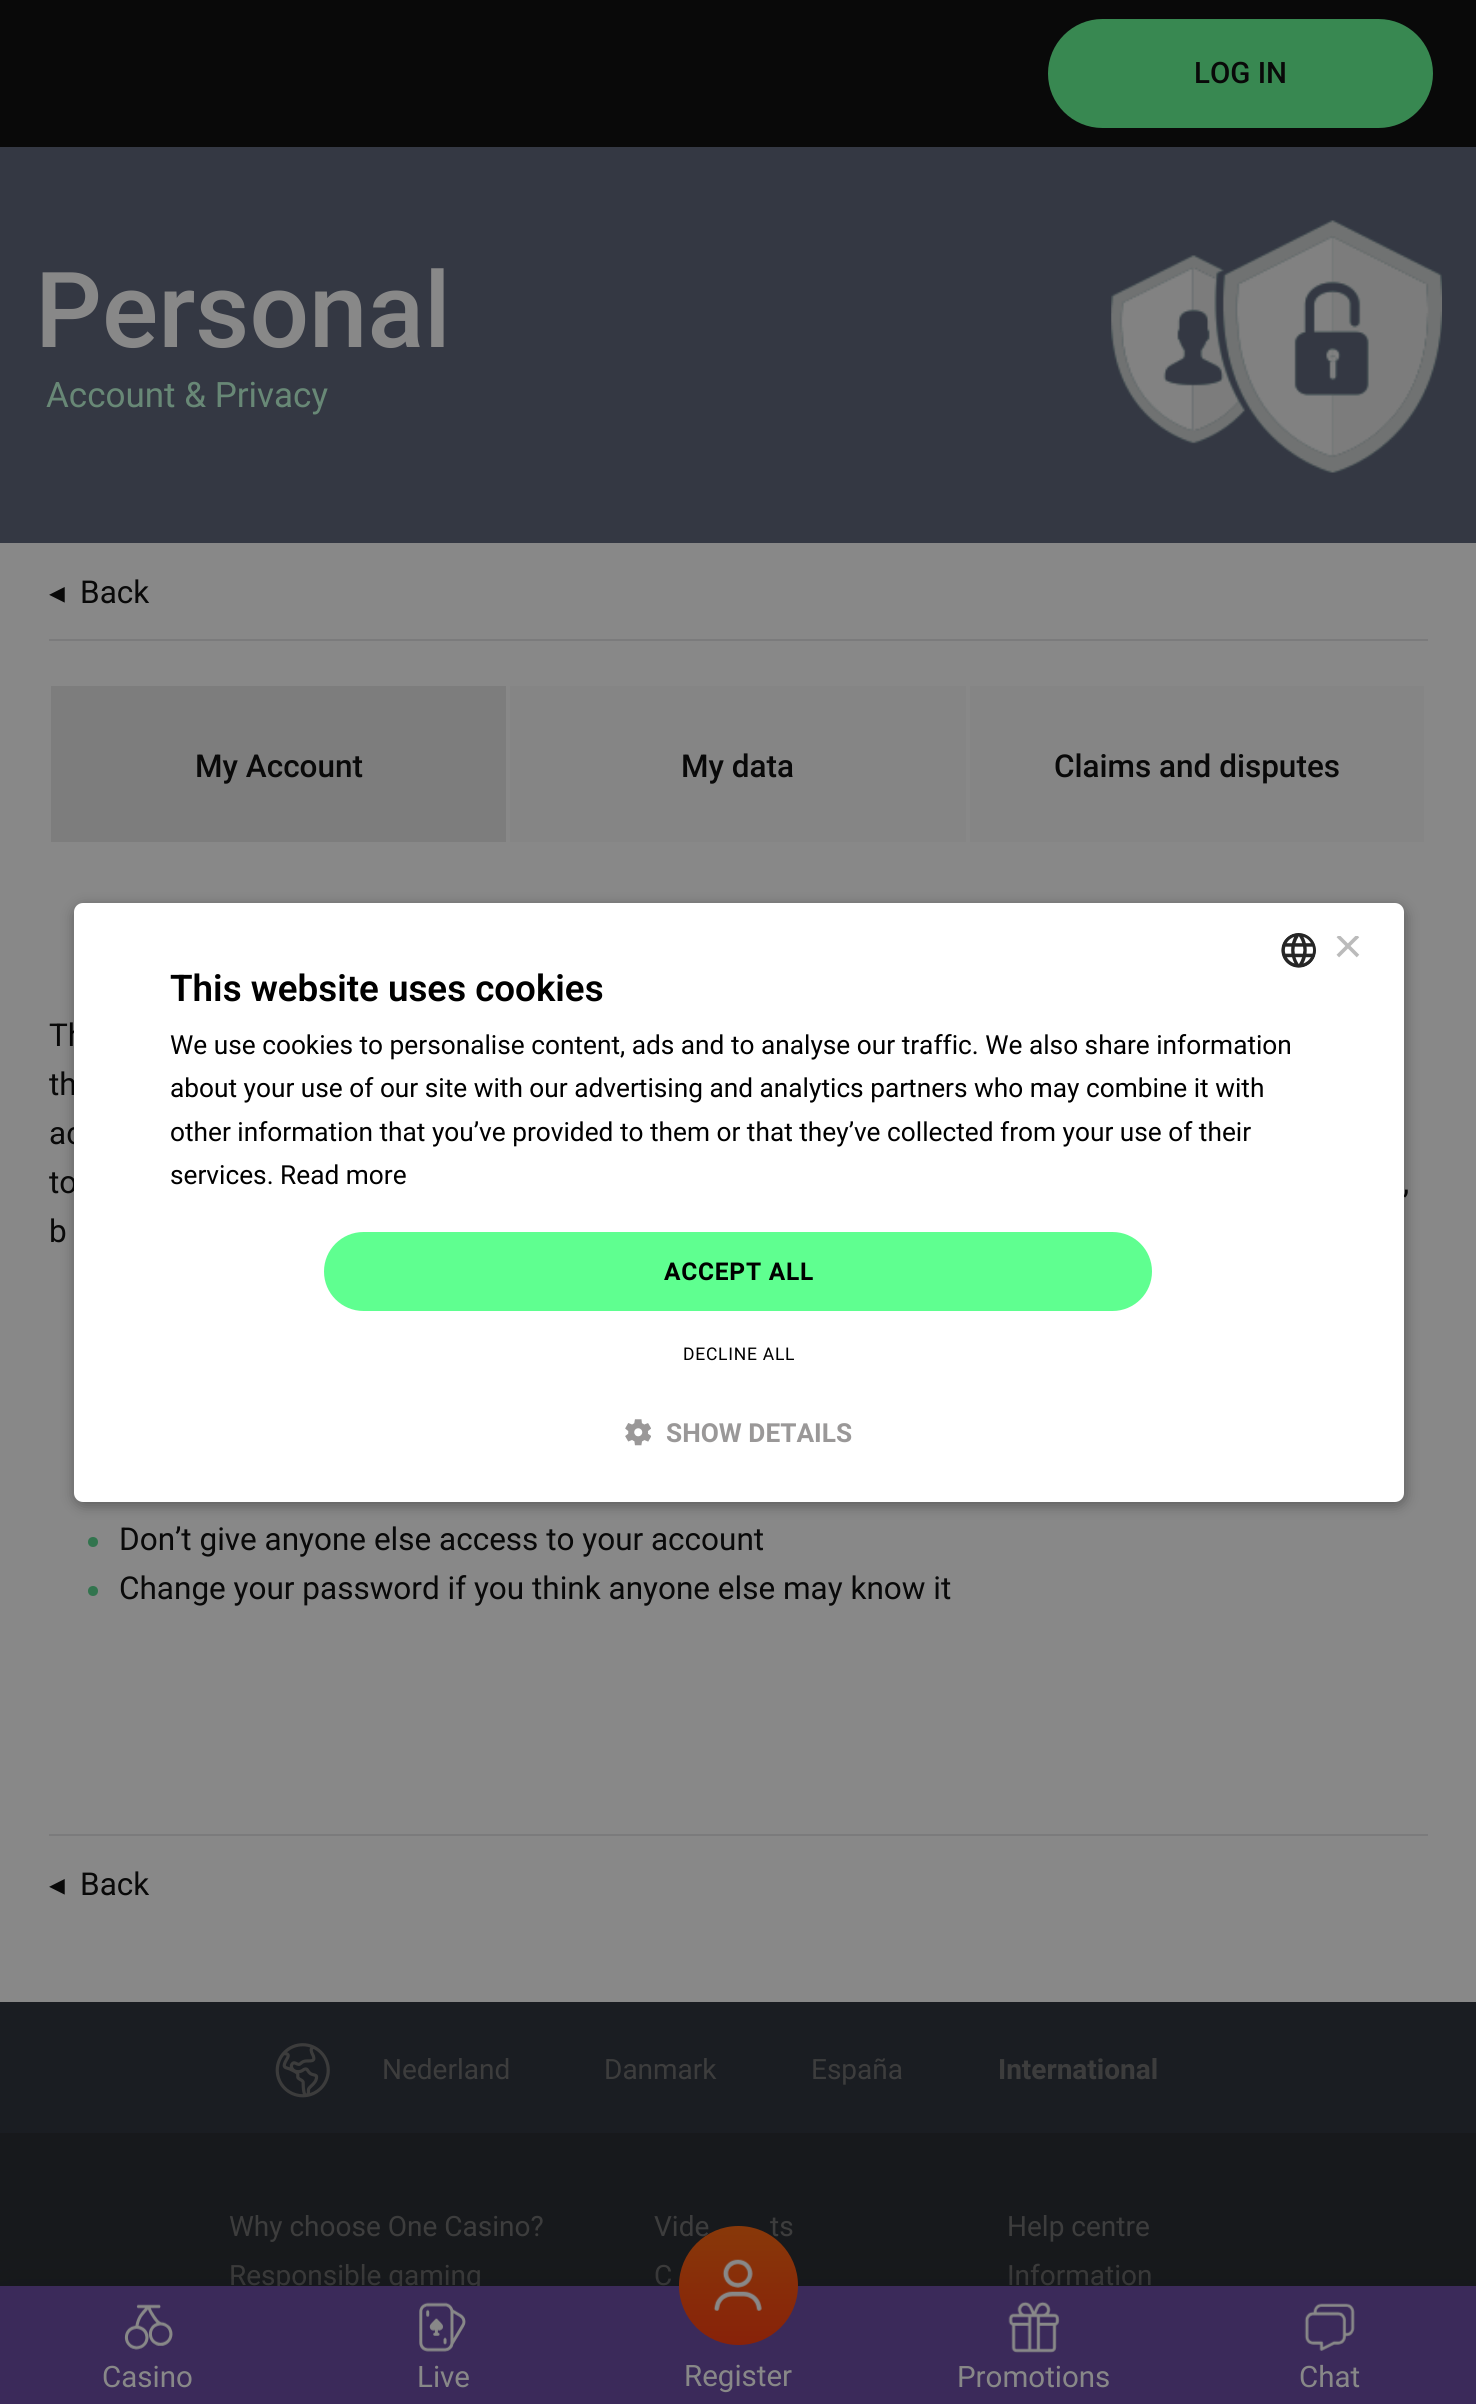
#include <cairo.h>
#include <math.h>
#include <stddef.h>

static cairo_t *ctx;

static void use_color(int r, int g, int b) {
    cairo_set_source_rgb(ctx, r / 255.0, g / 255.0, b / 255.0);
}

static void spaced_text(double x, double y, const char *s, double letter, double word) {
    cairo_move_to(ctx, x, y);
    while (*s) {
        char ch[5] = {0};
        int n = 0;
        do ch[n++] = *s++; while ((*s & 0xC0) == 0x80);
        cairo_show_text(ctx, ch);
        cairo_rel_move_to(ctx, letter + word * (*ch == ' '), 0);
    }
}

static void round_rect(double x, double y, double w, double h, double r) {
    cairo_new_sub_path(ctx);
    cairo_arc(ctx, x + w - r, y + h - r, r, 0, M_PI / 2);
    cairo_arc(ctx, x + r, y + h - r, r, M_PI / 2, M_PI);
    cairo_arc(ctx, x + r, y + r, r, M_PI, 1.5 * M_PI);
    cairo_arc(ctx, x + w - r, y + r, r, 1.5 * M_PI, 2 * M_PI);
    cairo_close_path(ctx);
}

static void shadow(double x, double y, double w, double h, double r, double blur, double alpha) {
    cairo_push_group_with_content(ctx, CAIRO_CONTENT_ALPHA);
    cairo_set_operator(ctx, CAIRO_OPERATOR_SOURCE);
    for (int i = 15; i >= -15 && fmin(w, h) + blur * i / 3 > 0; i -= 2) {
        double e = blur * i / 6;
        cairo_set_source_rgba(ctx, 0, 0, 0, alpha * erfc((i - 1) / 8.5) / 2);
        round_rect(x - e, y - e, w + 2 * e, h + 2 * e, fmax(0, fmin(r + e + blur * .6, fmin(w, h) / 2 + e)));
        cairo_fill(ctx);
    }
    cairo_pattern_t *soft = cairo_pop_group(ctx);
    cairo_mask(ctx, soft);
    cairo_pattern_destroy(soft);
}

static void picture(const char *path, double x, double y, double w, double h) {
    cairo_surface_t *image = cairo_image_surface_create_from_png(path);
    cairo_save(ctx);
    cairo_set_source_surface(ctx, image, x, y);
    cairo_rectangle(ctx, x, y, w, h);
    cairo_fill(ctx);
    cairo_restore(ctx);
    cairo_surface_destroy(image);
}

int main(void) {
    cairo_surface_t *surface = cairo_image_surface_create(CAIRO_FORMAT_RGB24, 1476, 2404);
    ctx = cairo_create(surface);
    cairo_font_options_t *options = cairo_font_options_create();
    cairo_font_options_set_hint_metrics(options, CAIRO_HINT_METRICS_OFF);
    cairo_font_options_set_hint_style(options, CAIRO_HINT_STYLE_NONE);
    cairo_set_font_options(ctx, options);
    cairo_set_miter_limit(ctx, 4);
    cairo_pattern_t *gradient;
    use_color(136, 136, 136);
    cairo_paint(ctx);
    use_color(9, 9, 9);
    cairo_rectangle(ctx, 0, 0, 1476, 147);
    cairo_fill(ctx);
    use_color(56, 136, 81);
    round_rect(1048, 19, 385, 109, 54.5);
    cairo_fill(ctx);
    cairo_select_font_face(ctx, "Roboto Medium", CAIRO_FONT_SLANT_NORMAL, CAIRO_FONT_WEIGHT_NORMAL);
    cairo_set_font_size(ctx, 29.5);
    use_color(9, 9, 9);
    cairo_move_to(ctx, 1194, 83);
    cairo_show_text(ctx, "LOG IN");
    use_color(52, 56, 67);
    cairo_rectangle(ctx, 0, 147, 1476, 396);
    cairo_fill(ctx);
    cairo_set_font_size(ctx, 105);
    use_color(136, 136, 136);
    cairo_move_to(ctx, 35, 347);
    cairo_show_text(ctx, "Personal");
    cairo_select_font_face(ctx, "Roboto", CAIRO_FONT_SLANT_NORMAL, CAIRO_FONT_WEIGHT_NORMAL);
    cairo_set_font_size(ctx, 35);
    use_color(104, 136, 118);
    cairo_move_to(ctx, 46, 407);
    cairo_show_text(ctx, "Account & Privacy");
    picture("img1.png", 1111, 220, 331, 253);
    use_color(123, 123, 124);
    cairo_rectangle(ctx, 49, 639, 1379, 2);
    cairo_fill(ctx);
    cairo_select_font_face(ctx, "DejaVu Sans", CAIRO_FONT_SLANT_NORMAL, CAIRO_FONT_WEIGHT_NORMAL);
    cairo_set_font_size(ctx, 31.5);
    use_color(9, 9, 9);
    cairo_move_to(ctx, 49, 603);
    cairo_show_text(ctx, "◂");
    cairo_select_font_face(ctx, "Roboto", CAIRO_FONT_SLANT_NORMAL, CAIRO_FONT_WEIGHT_NORMAL);
    cairo_move_to(ctx, 80, 603);
    cairo_show_text(ctx, "Back");
    use_color(125, 125, 125);
    cairo_rectangle(ctx, 51, 686, 455, 156);
    cairo_fill(ctx);
    cairo_select_font_face(ctx, "Roboto Medium", CAIRO_FONT_SLANT_NORMAL, CAIRO_FONT_WEIGHT_NORMAL);
    use_color(9, 9, 9);
    cairo_move_to(ctx, 195, 777);
    cairo_show_text(ctx, "My Account");
    use_color(133, 133, 133);
    cairo_rectangle(ctx, 510, 686, 456, 156);
    cairo_fill(ctx);
    use_color(9, 9, 9);
    cairo_move_to(ctx, 681, 777);
    cairo_show_text(ctx, "My data");
    use_color(133, 133, 133);
    cairo_rectangle(ctx, 970, 686, 454, 156);
    cairo_fill(ctx);
    use_color(9, 9, 9);
    cairo_move_to(ctx, 1054, 777);
    cairo_show_text(ctx, "Claims and disputes");
    cairo_select_font_face(ctx, "Roboto", CAIRO_FONT_SLANT_NORMAL, CAIRO_FONT_WEIGHT_NORMAL);
    cairo_move_to(ctx, 49, 1046);
    cairo_show_text(ctx, "Th");
    cairo_move_to(ctx, 49, 1095);
    cairo_show_text(ctx, "th");
    cairo_move_to(ctx, 49, 1144);
    cairo_show_text(ctx, "ac");
    cairo_move_to(ctx, 49, 1193);
    cairo_show_text(ctx, "to");
    cairo_move_to(ctx, 1403, 1193);
    cairo_show_text(ctx, ",");
    cairo_move_to(ctx, 49, 1242);
    cairo_show_text(ctx, "b");
    use_color(50, 116, 78);
    cairo_new_path(ctx);
    cairo_arc(ctx, 93, 1542, 5, 0, 2 * M_PI);
    cairo_fill(ctx);
    use_color(9, 9, 9);
    cairo_move_to(ctx, 119, 1550);
    cairo_show_text(ctx, "Don’t give anyone else access to your account");
    use_color(50, 116, 78);
    cairo_new_path(ctx);
    cairo_arc(ctx, 93, 1591, 5, 0, 2 * M_PI);
    cairo_fill(ctx);
    use_color(9, 9, 9);
    cairo_move_to(ctx, 119, 1599);
    cairo_show_text(ctx, "Change your password if you think anyone else may know it");
    use_color(123, 123, 124);
    cairo_rectangle(ctx, 49, 1834, 1379, 2);
    cairo_fill(ctx);
    cairo_select_font_face(ctx, "DejaVu Sans", CAIRO_FONT_SLANT_NORMAL, CAIRO_FONT_WEIGHT_NORMAL);
    use_color(9, 9, 9);
    cairo_move_to(ctx, 49, 1895);
    cairo_show_text(ctx, "◂");
    cairo_select_font_face(ctx, "Roboto", CAIRO_FONT_SLANT_NORMAL, CAIRO_FONT_WEIGHT_NORMAL);
    cairo_move_to(ctx, 80, 1895);
    cairo_show_text(ctx, "Back");
    use_color(23, 25, 28);
    cairo_rectangle(ctx, 0, 2133, 1476, 153);
    cairo_fill(ctx);
    use_color(26, 29, 34);
    cairo_rectangle(ctx, 0, 2002, 1476, 131);
    cairo_fill(ctx);
    picture("img2.png", 275, 2043, 55, 55);
    cairo_set_font_size(ctx, 28);
    use_color(61, 61, 61);
    cairo_move_to(ctx, 382, 2079);
    cairo_show_text(ctx, "Nederland");
    cairo_move_to(ctx, 604, 2079);
    cairo_show_text(ctx, "Danmark");
    cairo_move_to(ctx, 811, 2079);
    cairo_show_text(ctx, "España");
    cairo_select_font_face(ctx, "Roboto", CAIRO_FONT_SLANT_NORMAL, CAIRO_FONT_WEIGHT_BOLD);
    cairo_move_to(ctx, 998, 2079);
    cairo_show_text(ctx, "International");
    cairo_select_font_face(ctx, "Roboto", CAIRO_FONT_SLANT_NORMAL, CAIRO_FONT_WEIGHT_NORMAL);
    cairo_move_to(ctx, 229, 2236);
    cairo_show_text(ctx, "Why choose One Casino?");
    cairo_move_to(ctx, 229, 2285);
    cairo_show_text(ctx, "Responsible gaming");
    cairo_move_to(ctx, 654, 2236);
    cairo_show_text(ctx, "Vide");
    cairo_move_to(ctx, 770, 2236);
    cairo_show_text(ctx, "ts");
    cairo_move_to(ctx, 654, 2285);
    cairo_show_text(ctx, "C");
    cairo_move_to(ctx, 1007, 2236);
    cairo_show_text(ctx, "Help centre");
    cairo_move_to(ctx, 1007, 2285);
    cairo_show_text(ctx, "Information");
    use_color(0, 0, 0);
    shadow(75, 907, 1330, 598, 9, 7, 0.35);
    use_color(255, 255, 255);
    round_rect(74, 903, 1330, 599, 9);
    cairo_fill(ctx);
    picture("img3.png", 1281, 933, 35, 35);
    cairo_save(ctx);
    cairo_rectangle(ctx, 1334, 936, 26, 27);
    cairo_clip(ctx);
    cairo_select_font_face(ctx, "Liberation Sans", CAIRO_FONT_SLANT_NORMAL, CAIRO_FONT_WEIGHT_NORMAL);
    cairo_set_font_size(ctx, 51);
    use_color(187, 187, 187);
    cairo_move_to(ctx, 1333, 963);
    cairo_show_text(ctx, "×");
    cairo_restore(ctx);
    cairo_select_font_face(ctx, "Roboto SemiBold", CAIRO_FONT_SLANT_NORMAL, CAIRO_FONT_WEIGHT_NORMAL);
    cairo_set_font_size(ctx, 36.75);
    use_color(0, 0, 0);
    cairo_move_to(ctx, 170, 1001);
    cairo_show_text(ctx, "This website uses cookies");
    cairo_select_font_face(ctx, "Roboto", CAIRO_FONT_SLANT_NORMAL, CAIRO_FONT_WEIGHT_NORMAL);
    cairo_set_font_size(ctx, 26.25);
    cairo_move_to(ctx, 170, 1054);
    cairo_show_text(ctx, "We use cookies to personalise content, ads and to analyse our traffic. We also share information");
    cairo_move_to(ctx, 170, 1097);
    cairo_show_text(ctx, "about your use of our site with our advertising and analytics partners who may combine it with");
    cairo_move_to(ctx, 170, 1141);
    cairo_show_text(ctx, "other information that you’ve provided to them or that they’ve collected from your use of their");
    cairo_move_to(ctx, 170, 1184);
    cairo_show_text(ctx, "services. Read more");
    use_color(95, 255, 144);
    round_rect(324, 1232, 828, 79, 39.5);
    cairo_fill(ctx);
    cairo_select_font_face(ctx, "Roboto", CAIRO_FONT_SLANT_NORMAL, CAIRO_FONT_WEIGHT_BOLD);
    cairo_set_font_size(ctx, 24.5);
    use_color(0, 0, 0);
    spaced_text(664, 1280, "ACCEPT ALL", 0.75, 0);
    cairo_select_font_face(ctx, "Roboto", CAIRO_FONT_SLANT_NORMAL, CAIRO_FONT_WEIGHT_NORMAL);
    cairo_set_font_size(ctx, 17.5);
    spaced_text(683, 1360, "DECLINE ALL", 0.75, 0);
    picture("img4.png", 625, 1419, 26, 27);
    cairo_select_font_face(ctx, "Roboto", CAIRO_FONT_SLANT_NORMAL, CAIRO_FONT_WEIGHT_BOLD);
    cairo_set_font_size(ctx, 26.25);
    use_color(154, 152, 152);
    cairo_move_to(ctx, 666, 1442);
    cairo_show_text(ctx, "SHOW DETAILS");
    use_color(21, 22, 24);
    shadow(0, 2314, 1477, 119, 0, 30, 1);
    use_color(59, 42, 90);
    cairo_rectangle(ctx, 0, 2286, 1476, 118);
    cairo_fill(ctx);
    picture("img5.png", 124, 2304, 49, 46);
    cairo_select_font_face(ctx, "Roboto", CAIRO_FONT_SLANT_NORMAL, CAIRO_FONT_WEIGHT_NORMAL);
    cairo_set_font_size(ctx, 29.5);
    use_color(136, 136, 136);
    cairo_move_to(ctx, 102, 2387);
    cairo_show_text(ctx, "Casino");
    picture("img6.png", 419, 2302, 47, 50);
    cairo_move_to(ctx, 417, 2387);
    cairo_show_text(ctx, "Live");
    gradient = cairo_pattern_create_linear(739, 2226, 739, 2345);
    cairo_pattern_add_color_stop_rgba(gradient, 0, 0.533, 0.22, 0.035, 1);
    cairo_pattern_add_color_stop_rgba(gradient, 1, 0.533, 0.133, 0.035, 1);
    cairo_set_source(ctx, gradient);
    cairo_pattern_destroy(gradient);
    cairo_new_path(ctx);
    cairo_arc(ctx, 738.5, 2285.5, 59.5, 0, 2 * M_PI);
    cairo_fill(ctx);
    picture("img7.png", 713, 2259, 49, 52);
    use_color(136, 136, 136);
    cairo_move_to(ctx, 684, 2386);
    cairo_show_text(ctx, "Register");
    picture("img8.png", 1008, 2301, 52, 52);
    cairo_move_to(ctx, 957, 2387);
    cairo_show_text(ctx, "Promotions");
    picture("img9.png", 1304, 2303, 51, 48);
    cairo_move_to(ctx, 1299, 2387);
    cairo_show_text(ctx, "Chat");
    cairo_surface_write_to_png(surface, "result.png");
    cairo_font_options_destroy(options);
    cairo_destroy(ctx);
    cairo_surface_destroy(surface);
    return 0;
}
